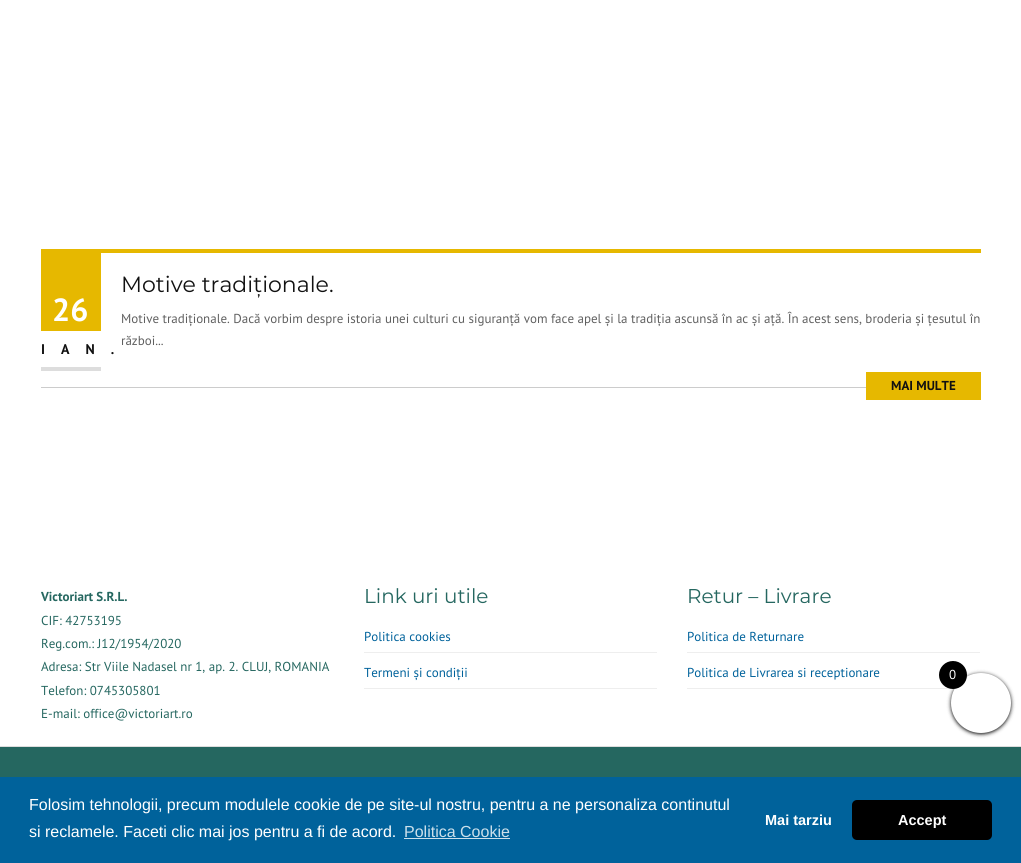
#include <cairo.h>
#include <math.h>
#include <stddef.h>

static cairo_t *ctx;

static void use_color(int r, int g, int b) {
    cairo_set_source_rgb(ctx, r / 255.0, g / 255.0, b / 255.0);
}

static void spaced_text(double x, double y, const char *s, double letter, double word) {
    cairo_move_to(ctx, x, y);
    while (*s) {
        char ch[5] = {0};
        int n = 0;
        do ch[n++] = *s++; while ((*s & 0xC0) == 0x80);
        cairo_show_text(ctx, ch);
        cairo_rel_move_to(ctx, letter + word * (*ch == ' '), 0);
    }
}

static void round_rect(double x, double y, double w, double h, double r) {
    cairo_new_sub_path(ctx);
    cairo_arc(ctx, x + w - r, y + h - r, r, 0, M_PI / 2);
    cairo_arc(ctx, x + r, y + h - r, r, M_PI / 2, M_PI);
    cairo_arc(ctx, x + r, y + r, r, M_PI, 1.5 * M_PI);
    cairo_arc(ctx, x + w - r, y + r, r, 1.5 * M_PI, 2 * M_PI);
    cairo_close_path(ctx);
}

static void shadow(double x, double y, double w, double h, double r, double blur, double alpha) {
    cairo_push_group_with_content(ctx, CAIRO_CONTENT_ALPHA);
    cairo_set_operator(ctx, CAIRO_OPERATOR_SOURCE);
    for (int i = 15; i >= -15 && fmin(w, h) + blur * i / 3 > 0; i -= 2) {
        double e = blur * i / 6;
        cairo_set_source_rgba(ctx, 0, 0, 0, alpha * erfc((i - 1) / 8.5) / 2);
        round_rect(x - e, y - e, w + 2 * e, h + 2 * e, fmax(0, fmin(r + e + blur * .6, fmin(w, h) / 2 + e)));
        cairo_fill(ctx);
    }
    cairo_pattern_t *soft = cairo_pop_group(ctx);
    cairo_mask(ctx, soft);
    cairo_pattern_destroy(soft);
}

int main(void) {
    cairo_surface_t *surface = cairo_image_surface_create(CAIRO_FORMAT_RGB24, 1021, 863);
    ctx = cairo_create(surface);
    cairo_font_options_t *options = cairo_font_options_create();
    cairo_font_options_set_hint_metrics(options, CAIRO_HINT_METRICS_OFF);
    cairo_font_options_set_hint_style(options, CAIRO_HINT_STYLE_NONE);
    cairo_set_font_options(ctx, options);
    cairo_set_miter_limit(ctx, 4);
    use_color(255, 255, 255);
    cairo_paint(ctx);
    use_color(204, 204, 204);
    cairo_rectangle(ctx, 41, 387, 825, 1);
    cairo_fill(ctx);
    use_color(230, 184, 0);
    cairo_rectangle(ctx, 41, 249, 940, 4);
    cairo_fill(ctx);
    cairo_rectangle(ctx, 41, 253, 60, 78);
    cairo_fill(ctx);
    cairo_select_font_face(ctx, "PT Sans", CAIRO_FONT_SLANT_NORMAL, CAIRO_FONT_WEIGHT_BOLD);
    cairo_set_font_size(ctx, 32);
    use_color(255, 255, 255);
    cairo_move_to(ctx, 52, 321);
    cairo_show_text(ctx, "26");
    use_color(221, 221, 221);
    cairo_rectangle(ctx, 41, 367, 60, 4);
    cairo_fill(ctx);
    cairo_set_font_size(ctx, 14);
    use_color(17, 17, 17);
    spaced_text(41, 354, "IAN.", 16, 0);
    cairo_select_font_face(ctx, "Montserrat", CAIRO_FONT_SLANT_NORMAL, CAIRO_FONT_WEIGHT_NORMAL);
    cairo_set_font_size(ctx, 22);
    cairo_move_to(ctx, 121, 292);
    cairo_show_text(ctx, "Motive tradiționale.");
    cairo_select_font_face(ctx, "PT Sans", CAIRO_FONT_SLANT_NORMAL, CAIRO_FONT_WEIGHT_NORMAL);
    cairo_set_font_size(ctx, 13);
    use_color(96, 96, 96);
    cairo_move_to(ctx, 121, 323);
    cairo_show_text(ctx, "Motive tradiționale. Dacă vorbim despre istoria unei culturi cu siguranță vom face apel și la tradiția ascunsă în ac și ață. În acest sens, broderia și țesutul în");
    cairo_move_to(ctx, 121, 345);
    cairo_show_text(ctx, "război...");
    use_color(230, 184, 0);
    cairo_rectangle(ctx, 866, 372, 115, 28);
    cairo_fill(ctx);
    cairo_select_font_face(ctx, "PT Sans", CAIRO_FONT_SLANT_NORMAL, CAIRO_FONT_WEIGHT_BOLD);
    use_color(17, 17, 17);
    cairo_move_to(ctx, 891, 390);
    cairo_show_text(ctx, "MAI MULTE");
    use_color(37, 103, 96);
    cairo_move_to(ctx, 41, 601);
    cairo_show_text(ctx, "Victoriart S.R.L.");
    cairo_select_font_face(ctx, "PT Sans", CAIRO_FONT_SLANT_NORMAL, CAIRO_FONT_WEIGHT_NORMAL);
    cairo_move_to(ctx, 41, 625);
    cairo_show_text(ctx, "CIF: 42753195");
    cairo_move_to(ctx, 41, 648);
    cairo_show_text(ctx, "Reg.com.: J12/1954/2020");
    cairo_move_to(ctx, 41, 671);
    cairo_show_text(ctx, "Adresa: Str Viile Nadasel nr 1, ap. 2. CLUJ, ROMANIA");
    cairo_move_to(ctx, 41, 695);
    cairo_show_text(ctx, "Telefon: 0745305801");
    cairo_move_to(ctx, 41, 718);
    cairo_show_text(ctx, "E-mail: office@victoriart.ro");
    cairo_select_font_face(ctx, "Montserrat", CAIRO_FONT_SLANT_NORMAL, CAIRO_FONT_WEIGHT_NORMAL);
    cairo_set_font_size(ctx, 20);
    cairo_move_to(ctx, 364, 603);
    cairo_show_text(ctx, "Link uri utile");
    use_color(238, 238, 238);
    cairo_rectangle(ctx, 364, 652, 293, 1);
    cairo_fill(ctx);
    cairo_select_font_face(ctx, "PT Sans", CAIRO_FONT_SLANT_NORMAL, CAIRO_FONT_WEIGHT_NORMAL);
    cairo_set_font_size(ctx, 13);
    use_color(0, 98, 155);
    cairo_move_to(ctx, 364, 641);
    cairo_show_text(ctx, "Politica cookies");
    use_color(238, 238, 238);
    cairo_rectangle(ctx, 364, 688, 293, 1);
    cairo_fill(ctx);
    use_color(0, 98, 155);
    cairo_move_to(ctx, 364, 677);
    cairo_show_text(ctx, "Termeni și condiții");
    cairo_select_font_face(ctx, "Montserrat", CAIRO_FONT_SLANT_NORMAL, CAIRO_FONT_WEIGHT_NORMAL);
    cairo_set_font_size(ctx, 20);
    use_color(37, 103, 96);
    cairo_move_to(ctx, 687, 603);
    cairo_show_text(ctx, "Retur – Livrare");
    use_color(238, 238, 238);
    cairo_rectangle(ctx, 687, 652, 293, 1);
    cairo_fill(ctx);
    cairo_select_font_face(ctx, "PT Sans", CAIRO_FONT_SLANT_NORMAL, CAIRO_FONT_WEIGHT_NORMAL);
    cairo_set_font_size(ctx, 13);
    use_color(0, 98, 155);
    cairo_move_to(ctx, 687, 641);
    cairo_show_text(ctx, "Politica de Returnare");
    use_color(238, 238, 238);
    cairo_rectangle(ctx, 687, 688, 268, 1);
    cairo_fill(ctx);
    use_color(0, 98, 155);
    cairo_move_to(ctx, 687, 677);
    cairo_show_text(ctx, "Politica de Livrarea si receptionare");
    use_color(37, 103, 96);
    cairo_rectangle(ctx, 0, 747, 1021, 30);
    cairo_fill(ctx);
    use_color(221, 221, 221);
    cairo_rectangle(ctx, 0, 746, 1021, 1);
    cairo_fill(ctx);
    use_color(0, 0, 0);
    shadow(951, 674, 60, 60, 30, 2, 1);
    use_color(255, 255, 255);
    cairo_arc(ctx, 981, 703, 30, 0, 2 * M_PI);
    cairo_fill(ctx);
    use_color(0, 0, 0);
    cairo_arc(ctx, 953, 675, 14, 0, 2 * M_PI);
    cairo_fill(ctx);
    use_color(255, 255, 255);
    cairo_move_to(ctx, 949, 679);
    cairo_show_text(ctx, "0");
    use_color(0, 98, 155);
    cairo_rectangle(ctx, 0, 777, 1021, 86);
    cairo_fill(ctx);
    cairo_select_font_face(ctx, "Liberation Sans", CAIRO_FONT_SLANT_NORMAL, CAIRO_FONT_WEIGHT_NORMAL);
    cairo_set_font_size(ctx, 16);
    use_color(255, 255, 255);
    cairo_move_to(ctx, 29, 810);
    cairo_show_text(ctx, "Folosim tehnologii, precum modulele cookie de pe site-ul nostru, pentru a ne personaliza continutul");
    cairo_move_to(ctx, 29, 837);
    cairo_show_text(ctx, "si reclamele. Faceti clic mai jos pentru a fi de acord.");
    use_color(204, 224, 235);
    cairo_move_to(ctx, 404, 837);
    cairo_show_text(ctx, "Politica Cookie");
    cairo_rectangle(ctx, 404, 838, 106, 1);
    cairo_fill(ctx);
    cairo_select_font_face(ctx, "Liberation Sans", CAIRO_FONT_SLANT_NORMAL, CAIRO_FONT_WEIGHT_BOLD);
    cairo_set_font_size(ctx, 14.5);
    use_color(255, 255, 255);
    cairo_move_to(ctx, 765, 825);
    cairo_show_text(ctx, "Mai tarziu");
    use_color(0, 0, 0);
    round_rect(852, 800, 140, 40, 5);
    cairo_fill(ctx);
    use_color(255, 255, 255);
    cairo_move_to(ctx, 898, 825);
    cairo_show_text(ctx, "Accept");
    cairo_surface_write_to_png(surface, "result.png");
    cairo_font_options_destroy(options);
    cairo_destroy(ctx);
    cairo_surface_destroy(surface);
    return 0;
}
